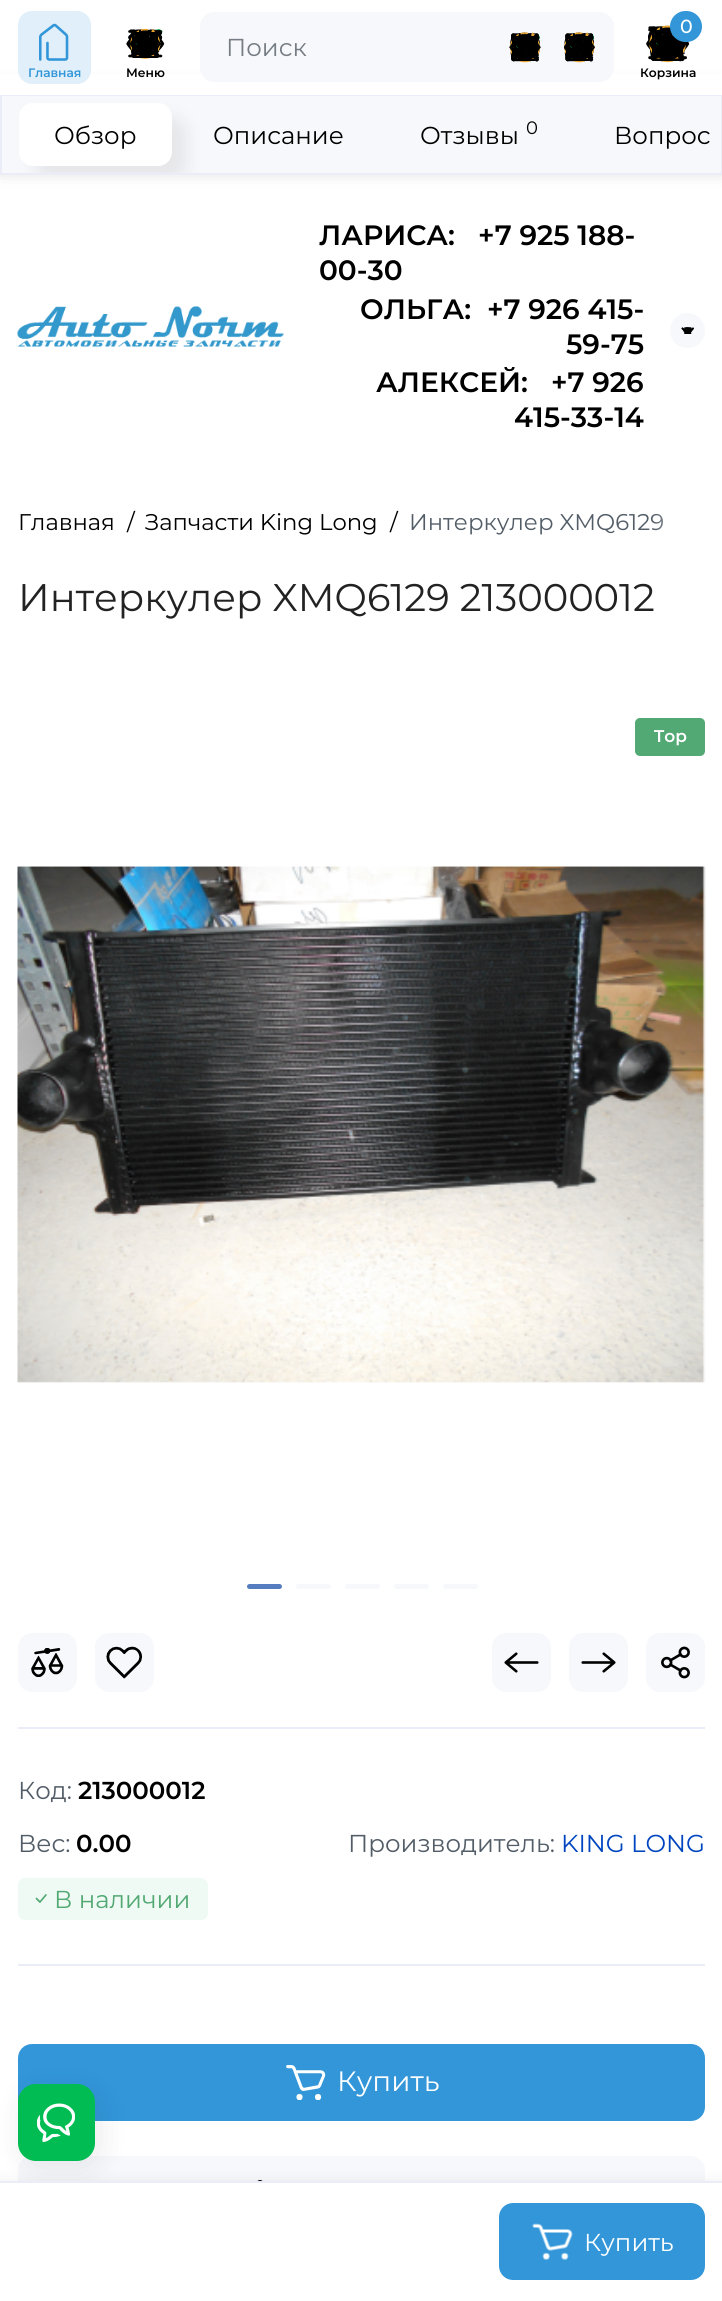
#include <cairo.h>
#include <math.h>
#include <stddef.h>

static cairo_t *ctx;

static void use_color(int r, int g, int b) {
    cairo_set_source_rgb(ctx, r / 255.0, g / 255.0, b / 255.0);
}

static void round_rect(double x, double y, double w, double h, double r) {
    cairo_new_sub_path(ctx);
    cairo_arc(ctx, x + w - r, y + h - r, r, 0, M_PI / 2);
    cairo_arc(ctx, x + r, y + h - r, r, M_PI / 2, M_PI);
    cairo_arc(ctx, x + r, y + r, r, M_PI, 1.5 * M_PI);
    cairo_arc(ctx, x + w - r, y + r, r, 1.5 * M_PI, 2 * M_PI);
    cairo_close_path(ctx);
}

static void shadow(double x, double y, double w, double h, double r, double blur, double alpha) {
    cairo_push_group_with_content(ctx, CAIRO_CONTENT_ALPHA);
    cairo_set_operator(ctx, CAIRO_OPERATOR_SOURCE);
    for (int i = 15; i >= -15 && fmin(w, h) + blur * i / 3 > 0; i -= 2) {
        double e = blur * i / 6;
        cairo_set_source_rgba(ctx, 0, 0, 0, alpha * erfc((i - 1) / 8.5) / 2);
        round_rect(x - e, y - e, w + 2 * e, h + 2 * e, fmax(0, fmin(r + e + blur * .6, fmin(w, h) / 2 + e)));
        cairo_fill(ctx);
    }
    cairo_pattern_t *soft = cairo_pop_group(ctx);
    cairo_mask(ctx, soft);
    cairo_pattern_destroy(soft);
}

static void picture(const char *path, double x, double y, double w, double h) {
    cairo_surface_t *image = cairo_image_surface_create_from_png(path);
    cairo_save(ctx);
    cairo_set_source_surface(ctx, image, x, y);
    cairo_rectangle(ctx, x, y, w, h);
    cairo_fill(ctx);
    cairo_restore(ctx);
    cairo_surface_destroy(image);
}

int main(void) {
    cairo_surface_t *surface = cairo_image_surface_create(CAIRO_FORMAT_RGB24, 722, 2301);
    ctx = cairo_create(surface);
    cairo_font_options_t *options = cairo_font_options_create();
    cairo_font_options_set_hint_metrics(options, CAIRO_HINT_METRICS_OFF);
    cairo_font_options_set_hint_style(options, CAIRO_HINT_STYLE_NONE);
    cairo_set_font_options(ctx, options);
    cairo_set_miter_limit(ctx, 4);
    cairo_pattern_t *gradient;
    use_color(255, 255, 255);
    cairo_paint(ctx);
    use_color(0, 0, 0);
    shadow(0, 89, 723, 81, 0, 9, 0.2);
    cairo_rectangle(ctx, 1, 96, 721, 78);
    use_color(234, 237, 247);
    cairo_stroke(ctx);
    use_color(247, 248, 251);
    cairo_rectangle(ctx, 2, 96, 719, 77);
    cairo_fill(ctx);
    cairo_save(ctx);
    cairo_rectangle(ctx, 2, 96, 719, 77);
    cairo_clip(ctx);
    use_color(0, 0, 0);
    shadow(35, 117, 152, 63, 14, 9, 0.07);
    cairo_restore(ctx);
    use_color(255, 255, 255);
    cairo_rectangle(ctx, 0, 74, 722, 21);
    cairo_fill(ctx);
    use_color(247, 248, 251);
    cairo_new_path(ctx);
    cairo_move_to(ctx, 214, 12);
    cairo_line_to(ctx, 497, 12);
    cairo_line_to(ctx, 497, 82);
    cairo_line_to(ctx, 214, 82);
    cairo_curve_to(ctx, 206.5, 82, 200, 75.5, 200, 68);
    cairo_line_to(ctx, 200, 26);
    cairo_curve_to(ctx, 200, 18.5, 206.5, 12, 214, 12);
    cairo_close_path(ctx);
    cairo_fill(ctx);
    cairo_select_font_face(ctx, "Montserrat", CAIRO_FONT_SLANT_NORMAL, CAIRO_FONT_WEIGHT_NORMAL);
    cairo_set_font_size(ctx, 24.5);
    use_color(117, 124, 131);
    cairo_move_to(ctx, 226, 56);
    cairo_show_text(ctx, "Поиск");
    use_color(247, 248, 251);
    cairo_rectangle(ctx, 497, 12, 56, 70);
    cairo_fill(ctx);
    picture("img1.png", 509, 32, 32, 31);
    cairo_new_path(ctx);
    cairo_move_to(ctx, 553, 12);
    cairo_line_to(ctx, 600, 12);
    cairo_curve_to(ctx, 607.5, 12, 614, 18.5, 614, 26);
    cairo_line_to(ctx, 614, 68);
    cairo_curve_to(ctx, 614, 75.5, 607.5, 82, 600, 82);
    cairo_line_to(ctx, 553, 82);
    cairo_close_path(ctx);
    cairo_fill(ctx);
    picture("img2.png", 564, 32, 31, 31);
    picture("img3.png", 646, 25, 44, 38);
    use_color(50, 150, 217);
    round_rect(670, 11, 32, 31, 15.5);
    cairo_fill(ctx);
    cairo_select_font_face(ctx, "Montserrat Medium", CAIRO_FONT_SLANT_NORMAL, CAIRO_FONT_WEIGHT_NORMAL);
    cairo_set_font_size(ctx, 19);
    use_color(255, 255, 255);
    cairo_move_to(ctx, 680, 33);
    cairo_show_text(ctx, "0");
    cairo_select_font_face(ctx, "Montserrat SemiBold", CAIRO_FONT_SLANT_NORMAL, CAIRO_FONT_WEIGHT_NORMAL);
    cairo_set_font_size(ctx, 12.25);
    use_color(0, 0, 0);
    cairo_move_to(ctx, 640, 77);
    cairo_show_text(ctx, "Корзина");
    use_color(224, 239, 249);
    round_rect(18, 11, 73, 73, 14);
    cairo_fill(ctx);
    picture("img4.png", 39, 23, 30, 38);
    use_color(50, 150, 217);
    cairo_move_to(ctx, 28, 77);
    cairo_show_text(ctx, "Главная");
    picture("img5.png", 126, 28, 39, 31);
    use_color(0, 0, 0);
    cairo_move_to(ctx, 126, 77);
    cairo_show_text(ctx, "Меню");
    picture("img6.png", 17, 306, 267, 41);
    cairo_set_font_size(ctx, 28);
    cairo_move_to(ctx, 319, 245);
    cairo_show_text(ctx, "ЛАРИСА:   +7 925 188-");
    cairo_move_to(ctx, 319, 280);
    cairo_show_text(ctx, "00-30");
    cairo_move_to(ctx, 360, 319);
    cairo_show_text(ctx, "ОЛЬГА:");
    cairo_move_to(ctx, 487, 319);
    cairo_show_text(ctx, "+7 926 415-");
    cairo_move_to(ctx, 566, 354);
    cairo_show_text(ctx, "59-75");
    use_color(247, 248, 251);
    cairo_new_path(ctx);
    cairo_arc(ctx, 687.5, 330.5, 17.5, 0, 2 * M_PI);
    cairo_fill(ctx);
    picture("img7.png", 681, 327, 13, 7);
    use_color(0, 0, 0);
    cairo_move_to(ctx, 376, 392);
    cairo_show_text(ctx, "АЛЕКСЕЙ:   +7 926");
    cairo_move_to(ctx, 514, 427);
    cairo_show_text(ctx, "415-33-14");
    use_color(255, 255, 255);
    round_rect(19, 103, 153, 63, 14);
    cairo_fill(ctx);
    cairo_select_font_face(ctx, "Montserrat", CAIRO_FONT_SLANT_NORMAL, CAIRO_FONT_WEIGHT_NORMAL);
    cairo_set_font_size(ctx, 24.5);
    use_color(0, 0, 0);
    cairo_move_to(ctx, 420, 144);
    cairo_show_text(ctx, "Отзывы");
    cairo_set_font_size(ctx, 18);
    cairo_move_to(ctx, 526, 134);
    cairo_show_text(ctx, "0");
    cairo_set_font_size(ctx, 24.5);
    cairo_move_to(ctx, 54, 144);
    cairo_show_text(ctx, "Обзор");
    cairo_move_to(ctx, 213, 144);
    cairo_show_text(ctx, "Описание");
    cairo_move_to(ctx, 614, 144);
    cairo_show_text(ctx, "Вопрос");
    use_color(83, 169, 116);
    round_rect(635, 718, 70, 38, 5);
    cairo_fill(ctx);
    cairo_select_font_face(ctx, "Montserrat SemiBold", CAIRO_FONT_SLANT_NORMAL, CAIRO_FONT_WEIGHT_NORMAL);
    cairo_set_font_size(ctx, 17);
    use_color(255, 255, 255);
    cairo_move_to(ctx, 654, 742);
    cairo_show_text(ctx, "Top");
    picture("img8.png", 17, 866, 689, 517);
    use_color(85, 125, 192);
    round_rect(247, 1584, 35, 5, 2.5);
    cairo_fill(ctx);
    use_color(247, 248, 251);
    round_rect(296, 1584, 35, 5, 2.5);
    cairo_fill(ctx);
    round_rect(345, 1584, 35, 5, 2.5);
    cairo_fill(ctx);
    round_rect(394, 1584, 35, 5, 2.5);
    cairo_fill(ctx);
    round_rect(443, 1584, 35, 5, 2.5);
    cairo_fill(ctx);
    use_color(234, 237, 247);
    cairo_rectangle(ctx, 18, 1727, 687, 2);
    cairo_fill(ctx);
    use_color(247, 248, 251);
    round_rect(18, 1633, 59, 59, 14);
    cairo_fill(ctx);
    picture("img9.png", 31, 1648, 33, 29);
    round_rect(95, 1633, 59, 59, 14);
    cairo_fill(ctx);
    picture("img10.png", 106, 1646, 37, 33);
    round_rect(492, 1633, 59, 59, 14);
    cairo_fill(ctx);
    picture("img11.png", 504, 1652, 35, 21);
    round_rect(569, 1633, 59, 59, 14);
    cairo_fill(ctx);
    picture("img12.png", 581, 1652, 35, 21);
    round_rect(646, 1633, 59, 59, 14);
    cairo_fill(ctx);
    picture("img13.png", 661, 1646, 29, 33);
    use_color(234, 237, 247);
    cairo_rectangle(ctx, 18, 1964, 687, 2);
    cairo_fill(ctx);
    cairo_select_font_face(ctx, "Montserrat", CAIRO_FONT_SLANT_NORMAL, CAIRO_FONT_WEIGHT_NORMAL);
    cairo_set_font_size(ctx, 24.5);
    use_color(83, 93, 103);
    cairo_move_to(ctx, 18, 1799);
    cairo_show_text(ctx, "Код:");
    cairo_select_font_face(ctx, "Montserrat SemiBold", CAIRO_FONT_SLANT_NORMAL, CAIRO_FONT_WEIGHT_NORMAL);
    use_color(0, 0, 0);
    cairo_move_to(ctx, 78, 1799);
    cairo_show_text(ctx, "213000012");
    cairo_select_font_face(ctx, "Montserrat", CAIRO_FONT_SLANT_NORMAL, CAIRO_FONT_WEIGHT_NORMAL);
    use_color(83, 93, 103);
    cairo_move_to(ctx, 18, 1852);
    cairo_show_text(ctx, "Вес:");
    cairo_select_font_face(ctx, "Montserrat SemiBold", CAIRO_FONT_SLANT_NORMAL, CAIRO_FONT_WEIGHT_NORMAL);
    use_color(0, 0, 0);
    cairo_move_to(ctx, 76, 1852);
    cairo_show_text(ctx, "0.00");
    cairo_select_font_face(ctx, "Montserrat", CAIRO_FONT_SLANT_NORMAL, CAIRO_FONT_WEIGHT_NORMAL);
    use_color(83, 93, 103);
    cairo_move_to(ctx, 348, 1852);
    cairo_show_text(ctx, "Производитель:");
    use_color(0, 69, 192);
    cairo_move_to(ctx, 561, 1852);
    cairo_show_text(ctx, "KING LONG");
    use_color(240, 250, 244);
    round_rect(18, 1878, 190, 42, 7);
    cairo_fill(ctx);
    picture("img14.png", 35, 1894, 12, 9);
    use_color(83, 169, 116);
    cairo_move_to(ctx, 54, 1908);
    cairo_show_text(ctx, "В наличии");
    use_color(50, 150, 217);
    round_rect(18, 2044, 687, 77, 14);
    cairo_fill(ctx);
    picture("img15.png", 286, 2065, 40, 35);
    cairo_set_font_size(ctx, 28);
    use_color(255, 255, 255);
    cairo_move_to(ctx, 337, 2091);
    cairo_show_text(ctx, "Купить");
    use_color(247, 248, 251);
    round_rect(18, 2156, 687, 77, 14);
    cairo_fill(ctx);
    picture("img16.png", 257, 2180, 6, 1);
    cairo_set_font_size(ctx, 22.75);
    use_color(0, 0, 0);
    cairo_move_to(ctx, 18, 530);
    cairo_show_text(ctx, "Главная");
    cairo_move_to(ctx, 127, 530);
    cairo_show_text(ctx, "/");
    cairo_move_to(ctx, 145, 530);
    cairo_show_text(ctx, "Запчасти King Long");
    cairo_move_to(ctx, 390, 530);
    cairo_show_text(ctx, "/");
    use_color(83, 93, 103);
    cairo_move_to(ctx, 409, 530);
    cairo_show_text(ctx, "Интеркулер XMQ6129");
    gradient = cairo_pattern_create_linear(653, 521, 705, 521);
    cairo_pattern_add_color_stop_rgba(gradient, 0, 1, 1, 1, 0);
    cairo_pattern_add_color_stop_rgba(gradient, 1, 1, 1, 1, 1);
    cairo_set_source(ctx, gradient);
    cairo_pattern_destroy(gradient);
    cairo_rectangle(ctx, 654, 514, 9, 16);
    cairo_fill(ctx);
    cairo_set_font_size(ctx, 38.5);
    use_color(34, 34, 34);
    cairo_move_to(ctx, 18, 611);
    cairo_show_text(ctx, "Интеркулер XMQ6129 213000012");
    use_color(0, 0, 0);
    shadow(23, 2091, 77, 77, 18, 16, 0.08);
    use_color(0, 188, 82);
    round_rect(18, 2084, 77, 77, 18);
    cairo_fill(ctx);
    use_color(0, 0, 0);
    shadow(0, 2186, 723, 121, 0, 9, 0.12);
    use_color(255, 255, 255);
    cairo_rectangle(ctx, 0, 2183, 722, 118);
    cairo_fill(ctx);
    use_color(234, 237, 247);
    cairo_rectangle(ctx, 0, 2181, 722, 2);
    cairo_fill(ctx);
    use_color(50, 150, 217);
    round_rect(499, 2203, 206, 77, 14);
    cairo_fill(ctx);
    picture("img17.png", 532, 2223, 41, 37);
    cairo_set_font_size(ctx, 24.5);
    use_color(255, 255, 255);
    cairo_move_to(ctx, 584, 2251);
    cairo_show_text(ctx, "Купить");
    picture("img18.png", 37, 2103, 38, 39);
    cairo_surface_write_to_png(surface, "result.png");
    cairo_font_options_destroy(options);
    cairo_destroy(ctx);
    cairo_surface_destroy(surface);
    return 0;
}
